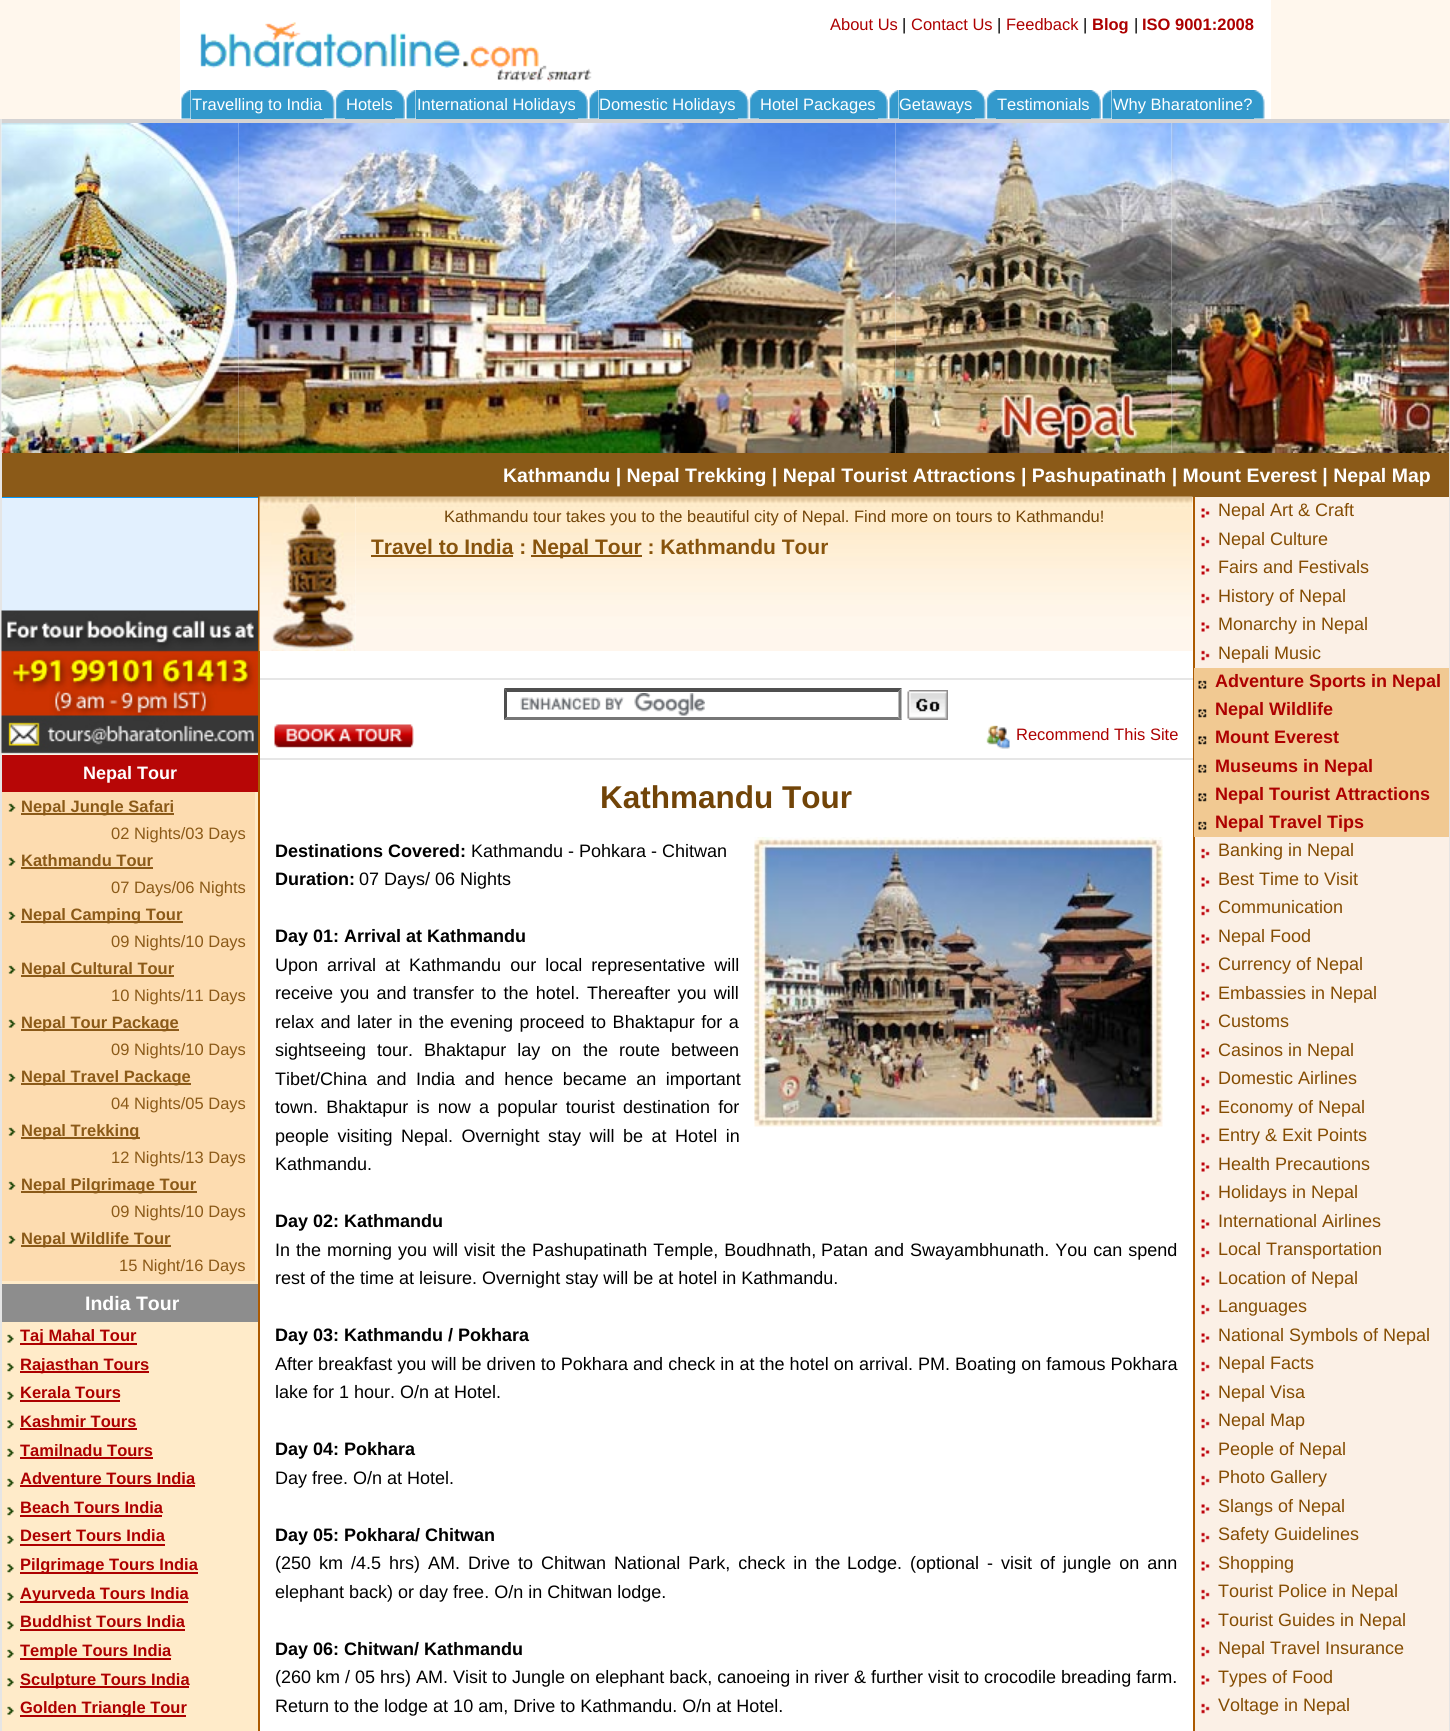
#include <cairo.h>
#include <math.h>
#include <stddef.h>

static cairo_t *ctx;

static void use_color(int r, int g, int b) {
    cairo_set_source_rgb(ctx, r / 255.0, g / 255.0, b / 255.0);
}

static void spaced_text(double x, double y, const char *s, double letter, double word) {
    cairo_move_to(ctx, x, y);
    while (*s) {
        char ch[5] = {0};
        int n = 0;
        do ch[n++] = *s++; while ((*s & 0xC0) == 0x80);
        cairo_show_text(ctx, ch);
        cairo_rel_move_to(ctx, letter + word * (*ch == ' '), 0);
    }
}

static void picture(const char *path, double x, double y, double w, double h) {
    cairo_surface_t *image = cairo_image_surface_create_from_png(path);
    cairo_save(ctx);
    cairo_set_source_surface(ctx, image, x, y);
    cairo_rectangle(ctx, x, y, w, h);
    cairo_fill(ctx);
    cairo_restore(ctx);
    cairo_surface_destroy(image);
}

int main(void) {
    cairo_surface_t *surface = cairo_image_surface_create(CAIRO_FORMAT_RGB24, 1450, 1731);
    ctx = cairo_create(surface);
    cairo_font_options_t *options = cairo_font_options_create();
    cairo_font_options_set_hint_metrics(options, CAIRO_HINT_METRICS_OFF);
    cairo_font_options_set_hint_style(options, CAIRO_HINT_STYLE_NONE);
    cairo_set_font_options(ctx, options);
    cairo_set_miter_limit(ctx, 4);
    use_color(255, 247, 237);
    cairo_paint(ctx);
    use_color(255, 255, 255);
    cairo_rectangle(ctx, 180, 0, 1091, 119);
    cairo_fill(ctx);
    picture("img1.png", 200, 22, 392, 60);
    cairo_select_font_face(ctx, "Liberation Sans", CAIRO_FONT_SLANT_NORMAL, CAIRO_FONT_WEIGHT_NORMAL);
    cairo_set_font_size(ctx, 16.5);
    use_color(173, 0, 0);
    cairo_move_to(ctx, 830, 30);
    cairo_show_text(ctx, "About Us");
    use_color(0, 0, 0);
    cairo_move_to(ctx, 902, 30);
    cairo_show_text(ctx, "|");
    use_color(173, 0, 0);
    cairo_move_to(ctx, 911, 30);
    cairo_show_text(ctx, "Contact Us");
    use_color(0, 0, 0);
    cairo_move_to(ctx, 997, 30);
    cairo_show_text(ctx, "|");
    use_color(173, 0, 0);
    cairo_move_to(ctx, 1006, 30);
    cairo_show_text(ctx, "Feedback");
    use_color(0, 0, 0);
    cairo_move_to(ctx, 1083, 30);
    cairo_show_text(ctx, "|");
    cairo_select_font_face(ctx, "Liberation Sans", CAIRO_FONT_SLANT_NORMAL, CAIRO_FONT_WEIGHT_BOLD);
    use_color(173, 0, 0);
    cairo_move_to(ctx, 1092, 30);
    cairo_show_text(ctx, "Blog");
    cairo_select_font_face(ctx, "Liberation Sans", CAIRO_FONT_SLANT_NORMAL, CAIRO_FONT_WEIGHT_NORMAL);
    use_color(0, 0, 0);
    cairo_move_to(ctx, 1134, 30);
    cairo_show_text(ctx, "|");
    cairo_select_font_face(ctx, "Liberation Sans", CAIRO_FONT_SLANT_NORMAL, CAIRO_FONT_WEIGHT_BOLD);
    use_color(173, 0, 0);
    cairo_move_to(ctx, 1142, 30);
    cairo_show_text(ctx, "ISO 9001:2008");
    picture("img2.png", 181, 90, 10, 29);
    use_color(51, 153, 204);
    cairo_rectangle(ctx, 191, 90, 133, 29);
    cairo_fill(ctx);
    cairo_select_font_face(ctx, "Liberation Sans", CAIRO_FONT_SLANT_NORMAL, CAIRO_FONT_WEIGHT_NORMAL);
    use_color(255, 255, 255);
    cairo_move_to(ctx, 192, 110);
    cairo_show_text(ctx, "Travelling to India");
    picture("img3.png", 324, 90, 11, 29);
    picture("img4.png", 335, 90, 10, 29);
    use_color(51, 153, 204);
    cairo_rectangle(ctx, 345, 90, 50, 29);
    cairo_fill(ctx);
    use_color(255, 255, 255);
    cairo_move_to(ctx, 346, 110);
    cairo_show_text(ctx, "Hotels");
    picture("img5.png", 394, 90, 11, 29);
    picture("img6.png", 406, 90, 10, 29);
    use_color(51, 153, 204);
    cairo_rectangle(ctx, 416, 90, 162, 29);
    cairo_fill(ctx);
    use_color(255, 255, 255);
    cairo_move_to(ctx, 417, 110);
    cairo_show_text(ctx, "International Holidays");
    picture("img5.png", 577, 90, 11, 29);
    picture("img6.png", 589, 90, 10, 29);
    use_color(51, 153, 204);
    cairo_rectangle(ctx, 599, 90, 139, 29);
    cairo_fill(ctx);
    use_color(255, 255, 255);
    cairo_move_to(ctx, 599, 110);
    cairo_show_text(ctx, "Domestic Holidays");
    picture("img3.png", 738, 90, 11, 29);
    picture("img7.png", 749, 90, 10, 29);
    use_color(51, 153, 204);
    cairo_rectangle(ctx, 759, 90, 119, 29);
    cairo_fill(ctx);
    use_color(255, 255, 255);
    cairo_move_to(ctx, 760, 110);
    cairo_show_text(ctx, "Hotel Packages");
    picture("img8.png", 877, 90, 11, 29);
    picture("img2.png", 889, 90, 10, 29);
    use_color(51, 153, 204);
    cairo_rectangle(ctx, 899, 90, 76, 29);
    cairo_fill(ctx);
    use_color(255, 255, 255);
    cairo_move_to(ctx, 899, 110);
    cairo_show_text(ctx, "Getaways");
    picture("img9.png", 975, 90, 11, 29);
    picture("img4.png", 986, 90, 10, 29);
    use_color(51, 153, 204);
    cairo_rectangle(ctx, 996, 90, 95, 29);
    cairo_fill(ctx);
    use_color(255, 255, 255);
    cairo_move_to(ctx, 997, 110);
    cairo_show_text(ctx, "Testimonials");
    picture("img8.png", 1090, 90, 11, 29);
    picture("img6.png", 1102, 90, 10, 29);
    use_color(51, 153, 204);
    cairo_rectangle(ctx, 1112, 90, 142, 29);
    cairo_fill(ctx);
    use_color(255, 255, 255);
    cairo_move_to(ctx, 1113, 110);
    cairo_show_text(ctx, "Why Bharatonline?");
    picture("img3.png", 1254, 90, 11, 29);
    use_color(229, 229, 229);
    cairo_rectangle(ctx, 1449, 119, 1, 1612);
    cairo_fill(ctx);
    cairo_rectangle(ctx, 0, 119, 2, 1612);
    cairo_fill(ctx);
    use_color(213, 211, 211);
    cairo_rectangle(ctx, 2, 119, 1447, 4);
    cairo_fill(ctx);
    picture("img10.png", 1, 123, 1448, 330);
    picture("img11.png", 1, 123, 238, 330);
    picture("img12.png", 238, 123, 350, 330);
    picture("img13.png", 588, 123, 308, 330);
    picture("img14.png", 895, 123, 277, 330);
    use_color(139, 90, 24);
    cairo_rectangle(ctx, 2, 453, 1447, 44);
    cairo_fill(ctx);
    cairo_select_font_face(ctx, "Liberation Sans", CAIRO_FONT_SLANT_NORMAL, CAIRO_FONT_WEIGHT_BOLD);
    cairo_set_font_size(ctx, 19.5);
    use_color(255, 255, 255);
    cairo_move_to(ctx, 503, 482);
    cairo_show_text(ctx, "Kathmandu | Nepal Trekking | Nepal Tourist Attractions | Pashupatinath | Mount Everest | Nepal Map");
    cairo_rectangle(ctx, 260, 497, 933, 1234);
    cairo_fill(ctx);
    use_color(255, 235, 201);
    cairo_rectangle(ctx, 2, 754, 256, 977);
    cairo_fill(ctx);
    use_color(172, 90, 1);
    cairo_rectangle(ctx, 258, 497, 2, 1234);
    cairo_fill(ctx);
    use_color(0, 153, 255);
    cairo_rectangle(ctx, 2, 497, 256, 1);
    cairo_fill(ctx);
    use_color(226, 240, 254);
    cairo_rectangle(ctx, 2, 498, 256, 113);
    cairo_fill(ctx);
    picture("img15.png", 1, 610, 257, 145);
    use_color(183, 6, 6);
    cairo_rectangle(ctx, 2, 755, 256, 37);
    cairo_fill(ctx);
    cairo_set_font_size(ctx, 18);
    use_color(255, 255, 255);
    cairo_move_to(ctx, 83, 779);
    cairo_show_text(ctx, "Nepal Tour");
    use_color(253, 220, 176);
    cairo_rectangle(ctx, 2, 792, 253, 489);
    cairo_fill(ctx);
    picture("img16.png", 8, 803, 8, 9);
    use_color(139, 90, 24);
    cairo_rectangle(ctx, 21, 813, 153, 2);
    cairo_fill(ctx);
    cairo_set_font_size(ctx, 16.5);
    cairo_move_to(ctx, 21, 812);
    cairo_show_text(ctx, "Nepal Jungle Safari");
    cairo_select_font_face(ctx, "Liberation Sans", CAIRO_FONT_SLANT_NORMAL, CAIRO_FONT_WEIGHT_NORMAL);
    cairo_move_to(ctx, 111, 839);
    cairo_show_text(ctx, "02 Nights/03 Days");
    picture("img16.png", 8, 857, 8, 9);
    cairo_select_font_face(ctx, "Liberation Sans", CAIRO_FONT_SLANT_NORMAL, CAIRO_FONT_WEIGHT_BOLD);
    cairo_move_to(ctx, 21, 866);
    cairo_show_text(ctx, "Kathmandu Tour");
    cairo_rectangle(ctx, 21, 867, 132, 2);
    cairo_fill(ctx);
    cairo_select_font_face(ctx, "Liberation Sans", CAIRO_FONT_SLANT_NORMAL, CAIRO_FONT_WEIGHT_NORMAL);
    cairo_move_to(ctx, 111, 893);
    cairo_show_text(ctx, "07 Days/06 Nights");
    picture("img16.png", 8, 911, 8, 9);
    cairo_rectangle(ctx, 21, 921, 162, 2);
    cairo_fill(ctx);
    cairo_select_font_face(ctx, "Liberation Sans", CAIRO_FONT_SLANT_NORMAL, CAIRO_FONT_WEIGHT_BOLD);
    cairo_move_to(ctx, 21, 920);
    cairo_show_text(ctx, "Nepal Camping Tour");
    cairo_select_font_face(ctx, "Liberation Sans", CAIRO_FONT_SLANT_NORMAL, CAIRO_FONT_WEIGHT_NORMAL);
    cairo_move_to(ctx, 111, 947);
    cairo_show_text(ctx, "09 Nights/10 Days");
    picture("img16.png", 8, 965, 8, 9);
    cairo_rectangle(ctx, 21, 975, 153, 2);
    cairo_fill(ctx);
    cairo_select_font_face(ctx, "Liberation Sans", CAIRO_FONT_SLANT_NORMAL, CAIRO_FONT_WEIGHT_BOLD);
    cairo_move_to(ctx, 21, 974);
    cairo_show_text(ctx, "Nepal Cultural Tour");
    cairo_select_font_face(ctx, "Liberation Sans", CAIRO_FONT_SLANT_NORMAL, CAIRO_FONT_WEIGHT_NORMAL);
    cairo_move_to(ctx, 111, 1001);
    cairo_show_text(ctx, "10 Nights/11 Days");
    picture("img16.png", 8, 1019, 8, 9);
    cairo_rectangle(ctx, 21, 1029, 158, 2);
    cairo_fill(ctx);
    cairo_select_font_face(ctx, "Liberation Sans", CAIRO_FONT_SLANT_NORMAL, CAIRO_FONT_WEIGHT_BOLD);
    cairo_move_to(ctx, 21, 1028);
    cairo_show_text(ctx, "Nepal Tour Package");
    cairo_select_font_face(ctx, "Liberation Sans", CAIRO_FONT_SLANT_NORMAL, CAIRO_FONT_WEIGHT_NORMAL);
    cairo_move_to(ctx, 111, 1055);
    cairo_show_text(ctx, "09 Nights/10 Days");
    picture("img16.png", 8, 1073, 8, 9);
    cairo_rectangle(ctx, 21, 1083, 170, 2);
    cairo_fill(ctx);
    cairo_select_font_face(ctx, "Liberation Sans", CAIRO_FONT_SLANT_NORMAL, CAIRO_FONT_WEIGHT_BOLD);
    cairo_move_to(ctx, 21, 1082);
    cairo_show_text(ctx, "Nepal Travel Package");
    cairo_select_font_face(ctx, "Liberation Sans", CAIRO_FONT_SLANT_NORMAL, CAIRO_FONT_WEIGHT_NORMAL);
    cairo_move_to(ctx, 111, 1109);
    cairo_show_text(ctx, "04 Nights/05 Days");
    picture("img16.png", 8, 1127, 8, 9);
    cairo_rectangle(ctx, 21, 1137, 119, 2);
    cairo_fill(ctx);
    cairo_select_font_face(ctx, "Liberation Sans", CAIRO_FONT_SLANT_NORMAL, CAIRO_FONT_WEIGHT_BOLD);
    cairo_move_to(ctx, 21, 1136);
    cairo_show_text(ctx, "Nepal Trekking");
    cairo_select_font_face(ctx, "Liberation Sans", CAIRO_FONT_SLANT_NORMAL, CAIRO_FONT_WEIGHT_NORMAL);
    cairo_move_to(ctx, 111, 1163);
    cairo_show_text(ctx, "12 Nights/13 Days");
    picture("img16.png", 8, 1181, 8, 9);
    cairo_rectangle(ctx, 21, 1191, 176, 2);
    cairo_fill(ctx);
    cairo_select_font_face(ctx, "Liberation Sans", CAIRO_FONT_SLANT_NORMAL, CAIRO_FONT_WEIGHT_BOLD);
    cairo_move_to(ctx, 21, 1190);
    cairo_show_text(ctx, "Nepal Pilgrimage Tour");
    cairo_select_font_face(ctx, "Liberation Sans", CAIRO_FONT_SLANT_NORMAL, CAIRO_FONT_WEIGHT_NORMAL);
    cairo_move_to(ctx, 111, 1217);
    cairo_show_text(ctx, "09 Nights/10 Days");
    picture("img16.png", 8, 1235, 8, 9);
    cairo_rectangle(ctx, 21, 1245, 150, 2);
    cairo_fill(ctx);
    cairo_select_font_face(ctx, "Liberation Sans", CAIRO_FONT_SLANT_NORMAL, CAIRO_FONT_WEIGHT_BOLD);
    cairo_move_to(ctx, 21, 1244);
    cairo_show_text(ctx, "Nepal Wildlife Tour");
    cairo_select_font_face(ctx, "Liberation Sans", CAIRO_FONT_SLANT_NORMAL, CAIRO_FONT_WEIGHT_NORMAL);
    cairo_move_to(ctx, 119, 1271);
    cairo_show_text(ctx, "15 Night/16 Days");
    use_color(141, 141, 141);
    cairo_rectangle(ctx, 2, 1284, 256, 38);
    cairo_fill(ctx);
    cairo_select_font_face(ctx, "Liberation Sans", CAIRO_FONT_SLANT_NORMAL, CAIRO_FONT_WEIGHT_BOLD);
    cairo_set_font_size(ctx, 19.5);
    use_color(255, 255, 255);
    cairo_move_to(ctx, 85, 1310);
    cairo_show_text(ctx, "India Tour");
    picture("img17.png", 7, 1334, 7, 9);
    use_color(173, 0, 0);
    cairo_rectangle(ctx, 20, 1343, 117, 2);
    cairo_fill(ctx);
    cairo_set_font_size(ctx, 16.5);
    cairo_move_to(ctx, 20, 1341);
    cairo_show_text(ctx, "Taj Mahal Tour");
    picture("img18.png", 7, 1363, 7, 9);
    cairo_rectangle(ctx, 20, 1371, 129, 2);
    cairo_fill(ctx);
    cairo_move_to(ctx, 20, 1370);
    cairo_show_text(ctx, "Rajasthan Tours");
    picture("img17.png", 7, 1391, 7, 9);
    cairo_move_to(ctx, 20, 1398);
    cairo_show_text(ctx, "Kerala Tours");
    cairo_rectangle(ctx, 20, 1400, 100, 2);
    cairo_fill(ctx);
    picture("img18.png", 7, 1420, 7, 9);
    cairo_move_to(ctx, 20, 1427);
    cairo_show_text(ctx, "Kashmir Tours");
    cairo_rectangle(ctx, 20, 1428, 117, 2);
    cairo_fill(ctx);
    picture("img17.png", 7, 1448, 7, 9);
    cairo_move_to(ctx, 20, 1456);
    cairo_show_text(ctx, "Tamilnadu Tours");
    cairo_rectangle(ctx, 20, 1457, 133, 2);
    cairo_fill(ctx);
    picture("img17.png", 7, 1478, 7, 9);
    cairo_move_to(ctx, 20, 1484);
    cairo_show_text(ctx, "Adventure Tours India");
    cairo_rectangle(ctx, 20, 1485, 175, 2);
    cairo_fill(ctx);
    picture("img18.png", 7, 1507, 7, 9);
    cairo_move_to(ctx, 20, 1513);
    cairo_show_text(ctx, "Beach Tours India");
    cairo_rectangle(ctx, 20, 1515, 142, 2);
    cairo_fill(ctx);
    picture("img17.png", 7, 1535, 7, 9);
    cairo_move_to(ctx, 20, 1541);
    cairo_show_text(ctx, "Desert Tours India");
    cairo_rectangle(ctx, 20, 1544, 145, 2);
    cairo_fill(ctx);
    picture("img18.png", 7, 1564, 7, 9);
    cairo_rectangle(ctx, 20, 1572, 178, 2);
    cairo_fill(ctx);
    cairo_move_to(ctx, 20, 1570);
    cairo_show_text(ctx, "Pilgrimage Tours India");
    picture("img17.png", 7, 1592, 7, 9);
    cairo_rectangle(ctx, 20, 1601, 168, 2);
    cairo_fill(ctx);
    cairo_move_to(ctx, 20, 1599);
    cairo_show_text(ctx, "Ayurveda Tours India");
    picture("img18.png", 7, 1621, 7, 9);
    cairo_move_to(ctx, 20, 1627);
    cairo_show_text(ctx, "Buddhist Tours India");
    cairo_rectangle(ctx, 20, 1629, 165, 2);
    cairo_fill(ctx);
    picture("img17.png", 7, 1649, 7, 9);
    cairo_rectangle(ctx, 20, 1658, 151, 2);
    cairo_fill(ctx);
    cairo_move_to(ctx, 20, 1656);
    cairo_show_text(ctx, "Temple Tours India");
    picture("img18.png", 7, 1678, 7, 9);
    cairo_rectangle(ctx, 20, 1686, 169, 2);
    cairo_fill(ctx);
    cairo_move_to(ctx, 20, 1685);
    cairo_show_text(ctx, "Sculpture Tours India");
    picture("img17.png", 7, 1706, 7, 9);
    cairo_rectangle(ctx, 20, 1715, 166, 2);
    cairo_fill(ctx);
    cairo_move_to(ctx, 20, 1713);
    cairo_show_text(ctx, "Golden Triangle Tour");
    picture("img20.png", 355, 496, 838, 155);
    picture("img19.png", 259, 496, 97, 155);
    cairo_select_font_face(ctx, "Liberation Sans", CAIRO_FONT_SLANT_NORMAL, CAIRO_FONT_WEIGHT_NORMAL);
    use_color(113, 68, 8);
    cairo_move_to(ctx, 444, 522);
    cairo_show_text(ctx, "Kathmandu tour takes you to the beautiful city of Nepal. Find more on tours to Kathmandu!");
    cairo_select_font_face(ctx, "Liberation Sans", CAIRO_FONT_SLANT_NORMAL, CAIRO_FONT_WEIGHT_BOLD);
    cairo_set_font_size(ctx, 21);
    use_color(136, 84, 13);
    cairo_move_to(ctx, 371, 554);
    cairo_show_text(ctx, "Travel to India :");
    cairo_rectangle(ctx, 371, 555, 142, 2);
    cairo_fill(ctx);
    cairo_rectangle(ctx, 531, 555, 111, 2);
    cairo_fill(ctx);
    cairo_move_to(ctx, 532, 554);
    cairo_show_text(ctx, "Nepal Tour : Kathmandu Tour");
    use_color(230, 230, 230);
    cairo_rectangle(ctx, 260, 678, 933, 2);
    cairo_fill(ctx);
    picture("img21.png", 520, 693, 185, 23);
    use_color(79, 79, 79);
    cairo_new_path(ctx);
    cairo_move_to(ctx, 504, 688);
    cairo_line_to(ctx, 902, 688);
    cairo_line_to(ctx, 898, 692);
    cairo_line_to(ctx, 507, 692);
    cairo_close_path(ctx);
    cairo_fill(ctx);
    use_color(118, 118, 118);
    cairo_new_path(ctx);
    cairo_move_to(ctx, 901.5, 688.5);
    cairo_line_to(ctx, 901.5, 720);
    cairo_line_to(ctx, 898.5, 717);
    cairo_line_to(ctx, 898.5, 691.5);
    cairo_close_path(ctx);
    cairo_fill(ctx);
    cairo_new_path(ctx);
    cairo_move_to(ctx, 902, 720);
    cairo_line_to(ctx, 504, 720);
    cairo_line_to(ctx, 507, 717);
    cairo_line_to(ctx, 898, 717);
    cairo_close_path(ctx);
    cairo_fill(ctx);
    use_color(79, 79, 79);
    cairo_new_path(ctx);
    cairo_move_to(ctx, 504, 720);
    cairo_line_to(ctx, 504, 688.5);
    cairo_line_to(ctx, 507, 691.5);
    cairo_line_to(ctx, 507, 717);
    cairo_close_path(ctx);
    cairo_fill(ctx);
    picture("img22.png", 907, 690, 41, 30);
    picture("img23.png", 274, 724, 140, 24);
    picture("img24.png", 986, 725, 24, 24);
    cairo_select_font_face(ctx, "Liberation Sans", CAIRO_FONT_SLANT_NORMAL, CAIRO_FONT_WEIGHT_NORMAL);
    cairo_set_font_size(ctx, 16.5);
    use_color(173, 0, 0);
    cairo_move_to(ctx, 1016, 740);
    cairo_show_text(ctx, "Recommend This Site");
    use_color(230, 230, 230);
    cairo_rectangle(ctx, 260, 758, 933, 2);
    cairo_fill(ctx);
    cairo_select_font_face(ctx, "Liberation Sans", CAIRO_FONT_SLANT_NORMAL, CAIRO_FONT_WEIGHT_BOLD);
    cairo_set_font_size(ctx, 31.5);
    use_color(113, 68, 8);
    cairo_move_to(ctx, 600, 808);
    cairo_show_text(ctx, "Kathmandu Tour");
    cairo_set_font_size(ctx, 18);
    use_color(0, 0, 0);
    cairo_move_to(ctx, 275, 857);
    cairo_show_text(ctx, "Destinations Covered:");
    cairo_select_font_face(ctx, "Liberation Sans", CAIRO_FONT_SLANT_NORMAL, CAIRO_FONT_WEIGHT_NORMAL);
    cairo_move_to(ctx, 471, 857);
    cairo_show_text(ctx, "Kathmandu - Pohkara - Chitwan");
    picture("img25.png", 754, 837, 409, 290);
    cairo_select_font_face(ctx, "Liberation Sans", CAIRO_FONT_SLANT_NORMAL, CAIRO_FONT_WEIGHT_BOLD);
    cairo_move_to(ctx, 275, 885);
    cairo_show_text(ctx, "Duration:");
    cairo_select_font_face(ctx, "Liberation Sans", CAIRO_FONT_SLANT_NORMAL, CAIRO_FONT_WEIGHT_NORMAL);
    cairo_move_to(ctx, 359, 885);
    cairo_show_text(ctx, "07 Days/ 06 Nights");
    cairo_select_font_face(ctx, "Liberation Sans", CAIRO_FONT_SLANT_NORMAL, CAIRO_FONT_WEIGHT_BOLD);
    cairo_move_to(ctx, 275, 942);
    cairo_show_text(ctx, "Day 01: Arrival at Kathmandu");
    cairo_select_font_face(ctx, "Liberation Sans", CAIRO_FONT_SLANT_NORMAL, CAIRO_FONT_WEIGHT_NORMAL);
    spaced_text(275, 971, "Upon arrival at Kathmandu our local representative will", 0, 4);
    spaced_text(275, 999, "receive you and", 0, 2.25);
    spaced_text(413, 999, "transfer to the hotel. Thereafter you will", 0, 2.25);
    spaced_text(275, 1028, "relax and later in the", 0, 1.5);
    spaced_text(450, 1028, "evening proceed to Bhaktapur for a", 0, 1.5);
    spaced_text(275, 1056, "sightseeing tour. Bhaktapur lay on", 0, 6);
    spaced_text(583, 1056, "the route between", 0, 6);
    spaced_text(275, 1085, "Tibet/China and India and hence became an important", 0, 4.5);
    spaced_text(275, 1113, "town. Bhaktapur is now a popular tourist destination for", 0, 3.25);
    spaced_text(275, 1142, "people visiting", 0, 3.5);
    spaced_text(401, 1142, "Nepal. Overnight stay will be at Hotel in", 0, 3.5);
    cairo_move_to(ctx, 275, 1170);
    cairo_show_text(ctx, "Kathmandu.");
    cairo_select_font_face(ctx, "Liberation Sans", CAIRO_FONT_SLANT_NORMAL, CAIRO_FONT_WEIGHT_BOLD);
    cairo_move_to(ctx, 275, 1227);
    cairo_show_text(ctx, "Day 02: Kathmandu");
    cairo_select_font_face(ctx, "Liberation Sans", CAIRO_FONT_SLANT_NORMAL, CAIRO_FONT_WEIGHT_NORMAL);
    spaced_text(275, 1256, "In the morning you will visit the Pashupatinath Temple, Boudhnath,", 0, 1);
    spaced_text(821, 1256, "Patan and Swayambhunath. You can spend", 0, 1);
    cairo_move_to(ctx, 275, 1284);
    cairo_show_text(ctx, "rest of the time at leisure. Overnight stay will be at hotel in Kathmandu.");
    cairo_select_font_face(ctx, "Liberation Sans", CAIRO_FONT_SLANT_NORMAL, CAIRO_FONT_WEIGHT_BOLD);
    cairo_move_to(ctx, 275, 1341);
    cairo_show_text(ctx, "Day 03: Kathmandu / Pokhara");
    cairo_select_font_face(ctx, "Liberation Sans", CAIRO_FONT_SLANT_NORMAL, CAIRO_FONT_WEIGHT_NORMAL);
    spaced_text(275, 1370, "After breakfast you will be driven to Pokhara and check in at the hotel on arrival. PM. Boating on famous Pokhara", 0, 0.1);
    cairo_move_to(ctx, 275, 1398);
    cairo_show_text(ctx, "lake for 1 hour. O/n at Hotel.");
    cairo_select_font_face(ctx, "Liberation Sans", CAIRO_FONT_SLANT_NORMAL, CAIRO_FONT_WEIGHT_BOLD);
    cairo_move_to(ctx, 275, 1455);
    cairo_show_text(ctx, "Day 04: Pokhara");
    cairo_select_font_face(ctx, "Liberation Sans", CAIRO_FONT_SLANT_NORMAL, CAIRO_FONT_WEIGHT_NORMAL);
    cairo_move_to(ctx, 275, 1484);
    cairo_show_text(ctx, "Day free. O/n at Hotel.");
    cairo_select_font_face(ctx, "Liberation Sans", CAIRO_FONT_SLANT_NORMAL, CAIRO_FONT_WEIGHT_BOLD);
    cairo_move_to(ctx, 275, 1541);
    cairo_show_text(ctx, "Day 05: Pokhara/ Chitwan");
    cairo_select_font_face(ctx, "Liberation Sans", CAIRO_FONT_SLANT_NORMAL, CAIRO_FONT_WEIGHT_NORMAL);
    spaced_text(275, 1569, "(250 km /4.5 hrs) AM. Drive to Chitwan National Park, check in the", 0, 3);
    spaced_text(847, 1569, "Lodge. (optional - visit of jungle on ann", 0, 3);
    cairo_move_to(ctx, 275, 1598);
    cairo_show_text(ctx, "elephant back) or day free. O/n in Chitwan lodge.");
    cairo_select_font_face(ctx, "Liberation Sans", CAIRO_FONT_SLANT_NORMAL, CAIRO_FONT_WEIGHT_BOLD);
    cairo_move_to(ctx, 275, 1655);
    cairo_show_text(ctx, "Day 06: Chitwan/ Kathmandu");
    cairo_select_font_face(ctx, "Liberation Sans", CAIRO_FONT_SLANT_NORMAL, CAIRO_FONT_WEIGHT_NORMAL);
    cairo_move_to(ctx, 275, 1683);
    cairo_show_text(ctx, "(260 km / 05 hrs) AM. Visit to Jungle on elephant back, canoeing in");
    cairo_move_to(ctx, 814, 1683);
    cairo_show_text(ctx, "river & further visit to crocodile breading farm.");
    cairo_move_to(ctx, 275, 1712);
    cairo_show_text(ctx, "Return to the lodge at 10 am, Drive to Kathmandu. O/n at Hotel.");
    use_color(251, 240, 230);
    cairo_rectangle(ctx, 1195, 497, 254, 1234);
    cairo_fill(ctx);
    use_color(172, 90, 1);
    cairo_rectangle(ctx, 1193, 497, 2, 1234);
    cairo_fill(ctx);
    picture("img26.png", 1201, 508, 9, 10);
    use_color(132, 76, 2);
    cairo_move_to(ctx, 1218, 516);
    cairo_show_text(ctx, "Nepal Art & Craft");
    picture("img27.png", 1201, 536, 9, 11);
    cairo_move_to(ctx, 1218, 545);
    cairo_show_text(ctx, "Nepal Culture");
    picture("img26.png", 1201, 565, 9, 10);
    cairo_move_to(ctx, 1218, 573);
    cairo_show_text(ctx, "Fairs and Festivals");
    picture("img27.png", 1201, 593, 9, 11);
    cairo_move_to(ctx, 1218, 602);
    cairo_show_text(ctx, "History of Nepal");
    picture("img26.png", 1201, 622, 9, 10);
    cairo_move_to(ctx, 1218, 630);
    cairo_show_text(ctx, "Monarchy in Nepal");
    picture("img27.png", 1201, 650, 9, 11);
    cairo_move_to(ctx, 1218, 659);
    cairo_show_text(ctx, "Nepali Music");
    use_color(241, 201, 146);
    cairo_rectangle(ctx, 1194, 668, 255, 169);
    cairo_fill(ctx);
    picture("img28.png", 1198, 680, 9, 9);
    cairo_select_font_face(ctx, "Liberation Sans", CAIRO_FONT_SLANT_NORMAL, CAIRO_FONT_WEIGHT_BOLD);
    use_color(173, 0, 0);
    cairo_move_to(ctx, 1215, 687);
    cairo_show_text(ctx, "Adventure Sports in Nepal");
    picture("img29.png", 1198, 709, 9, 9);
    cairo_move_to(ctx, 1215, 715);
    cairo_show_text(ctx, "Nepal Wildlife");
    picture("img29.png", 1198, 736, 9, 9);
    cairo_move_to(ctx, 1215, 743);
    cairo_show_text(ctx, "Mount Everest");
    picture("img28.png", 1198, 764, 9, 9);
    cairo_move_to(ctx, 1215, 772);
    cairo_show_text(ctx, "Museums in Nepal");
    picture("img29.png", 1198, 793, 9, 9);
    cairo_move_to(ctx, 1215, 800);
    cairo_show_text(ctx, "Nepal Tourist Attractions");
    picture("img28.png", 1198, 821, 9, 9);
    cairo_move_to(ctx, 1215, 828);
    cairo_show_text(ctx, "Nepal Travel Tips");
    picture("img27.png", 1201, 848, 9, 11);
    cairo_select_font_face(ctx, "Liberation Sans", CAIRO_FONT_SLANT_NORMAL, CAIRO_FONT_WEIGHT_NORMAL);
    use_color(132, 76, 2);
    cairo_move_to(ctx, 1218, 856);
    cairo_show_text(ctx, "Banking in Nepal");
    picture("img26.png", 1201, 877, 9, 10);
    cairo_move_to(ctx, 1218, 885);
    cairo_show_text(ctx, "Best Time to Visit");
    picture("img27.png", 1201, 905, 9, 11);
    cairo_move_to(ctx, 1218, 913);
    cairo_show_text(ctx, "Communication");
    picture("img26.png", 1201, 934, 9, 10);
    cairo_move_to(ctx, 1218, 942);
    cairo_show_text(ctx, "Nepal Food");
    picture("img27.png", 1201, 962, 9, 11);
    cairo_move_to(ctx, 1218, 970);
    cairo_show_text(ctx, "Currency of Nepal");
    picture("img26.png", 1201, 991, 9, 10);
    cairo_move_to(ctx, 1218, 999);
    cairo_show_text(ctx, "Embassies in Nepal");
    picture("img27.png", 1201, 1019, 9, 11);
    cairo_move_to(ctx, 1218, 1027);
    cairo_show_text(ctx, "Customs");
    picture("img26.png", 1201, 1048, 9, 10);
    cairo_move_to(ctx, 1218, 1056);
    cairo_show_text(ctx, "Casinos in Nepal");
    picture("img27.png", 1201, 1076, 9, 11);
    cairo_move_to(ctx, 1218, 1084);
    cairo_show_text(ctx, "Domestic Airlines");
    picture("img26.png", 1201, 1105, 9, 10);
    cairo_move_to(ctx, 1218, 1113);
    cairo_show_text(ctx, "Economy of Nepal");
    picture("img27.png", 1201, 1133, 9, 11);
    cairo_move_to(ctx, 1218, 1141);
    cairo_show_text(ctx, "Entry & Exit Points");
    picture("img26.png", 1201, 1162, 9, 10);
    cairo_move_to(ctx, 1218, 1170);
    cairo_show_text(ctx, "Health Precautions");
    picture("img27.png", 1201, 1190, 9, 11);
    cairo_move_to(ctx, 1218, 1198);
    cairo_show_text(ctx, "Holidays in Nepal");
    picture("img26.png", 1201, 1219, 9, 10);
    cairo_move_to(ctx, 1218, 1227);
    cairo_show_text(ctx, "International Airlines");
    picture("img27.png", 1201, 1247, 9, 11);
    cairo_move_to(ctx, 1218, 1255);
    cairo_show_text(ctx, "Local Transportation");
    picture("img26.png", 1201, 1276, 9, 10);
    cairo_move_to(ctx, 1218, 1284);
    cairo_show_text(ctx, "Location of Nepal");
    picture("img27.png", 1201, 1304, 9, 11);
    cairo_move_to(ctx, 1218, 1312);
    cairo_show_text(ctx, "Languages");
    picture("img26.png", 1201, 1333, 9, 10);
    cairo_move_to(ctx, 1218, 1341);
    cairo_show_text(ctx, "National Symbols of Nepal");
    picture("img27.png", 1201, 1361, 9, 11);
    cairo_move_to(ctx, 1218, 1369);
    cairo_show_text(ctx, "Nepal Facts");
    picture("img26.png", 1201, 1390, 9, 10);
    cairo_move_to(ctx, 1218, 1398);
    cairo_show_text(ctx, "Nepal Visa");
    picture("img27.png", 1201, 1418, 9, 11);
    cairo_move_to(ctx, 1218, 1426);
    cairo_show_text(ctx, "Nepal Map");
    picture("img26.png", 1201, 1447, 9, 10);
    cairo_move_to(ctx, 1218, 1455);
    cairo_show_text(ctx, "People of Nepal");
    picture("img27.png", 1201, 1475, 9, 11);
    cairo_move_to(ctx, 1218, 1483);
    cairo_show_text(ctx, "Photo Gallery");
    picture("img26.png", 1201, 1504, 9, 10);
    cairo_move_to(ctx, 1218, 1512);
    cairo_show_text(ctx, "Slangs of Nepal");
    picture("img27.png", 1201, 1532, 9, 11);
    cairo_move_to(ctx, 1218, 1540);
    cairo_show_text(ctx, "Safety Guidelines");
    picture("img26.png", 1201, 1561, 9, 10);
    cairo_move_to(ctx, 1218, 1569);
    cairo_show_text(ctx, "Shopping");
    picture("img27.png", 1201, 1589, 9, 11);
    cairo_move_to(ctx, 1218, 1597);
    cairo_show_text(ctx, "Tourist Police in Nepal");
    picture("img26.png", 1201, 1618, 9, 10);
    cairo_move_to(ctx, 1218, 1626);
    cairo_show_text(ctx, "Tourist Guides in Nepal");
    picture("img27.png", 1201, 1646, 9, 11);
    cairo_move_to(ctx, 1218, 1654);
    cairo_show_text(ctx, "Nepal Travel Insurance");
    picture("img26.png", 1201, 1675, 9, 10);
    cairo_move_to(ctx, 1218, 1683);
    cairo_show_text(ctx, "Types of Food");
    picture("img27.png", 1201, 1703, 9, 11);
    cairo_move_to(ctx, 1218, 1711);
    cairo_show_text(ctx, "Voltage in Nepal");
    cairo_surface_write_to_png(surface, "result.png");
    cairo_font_options_destroy(options);
    cairo_destroy(ctx);
    cairo_surface_destroy(surface);
    return 0;
}
